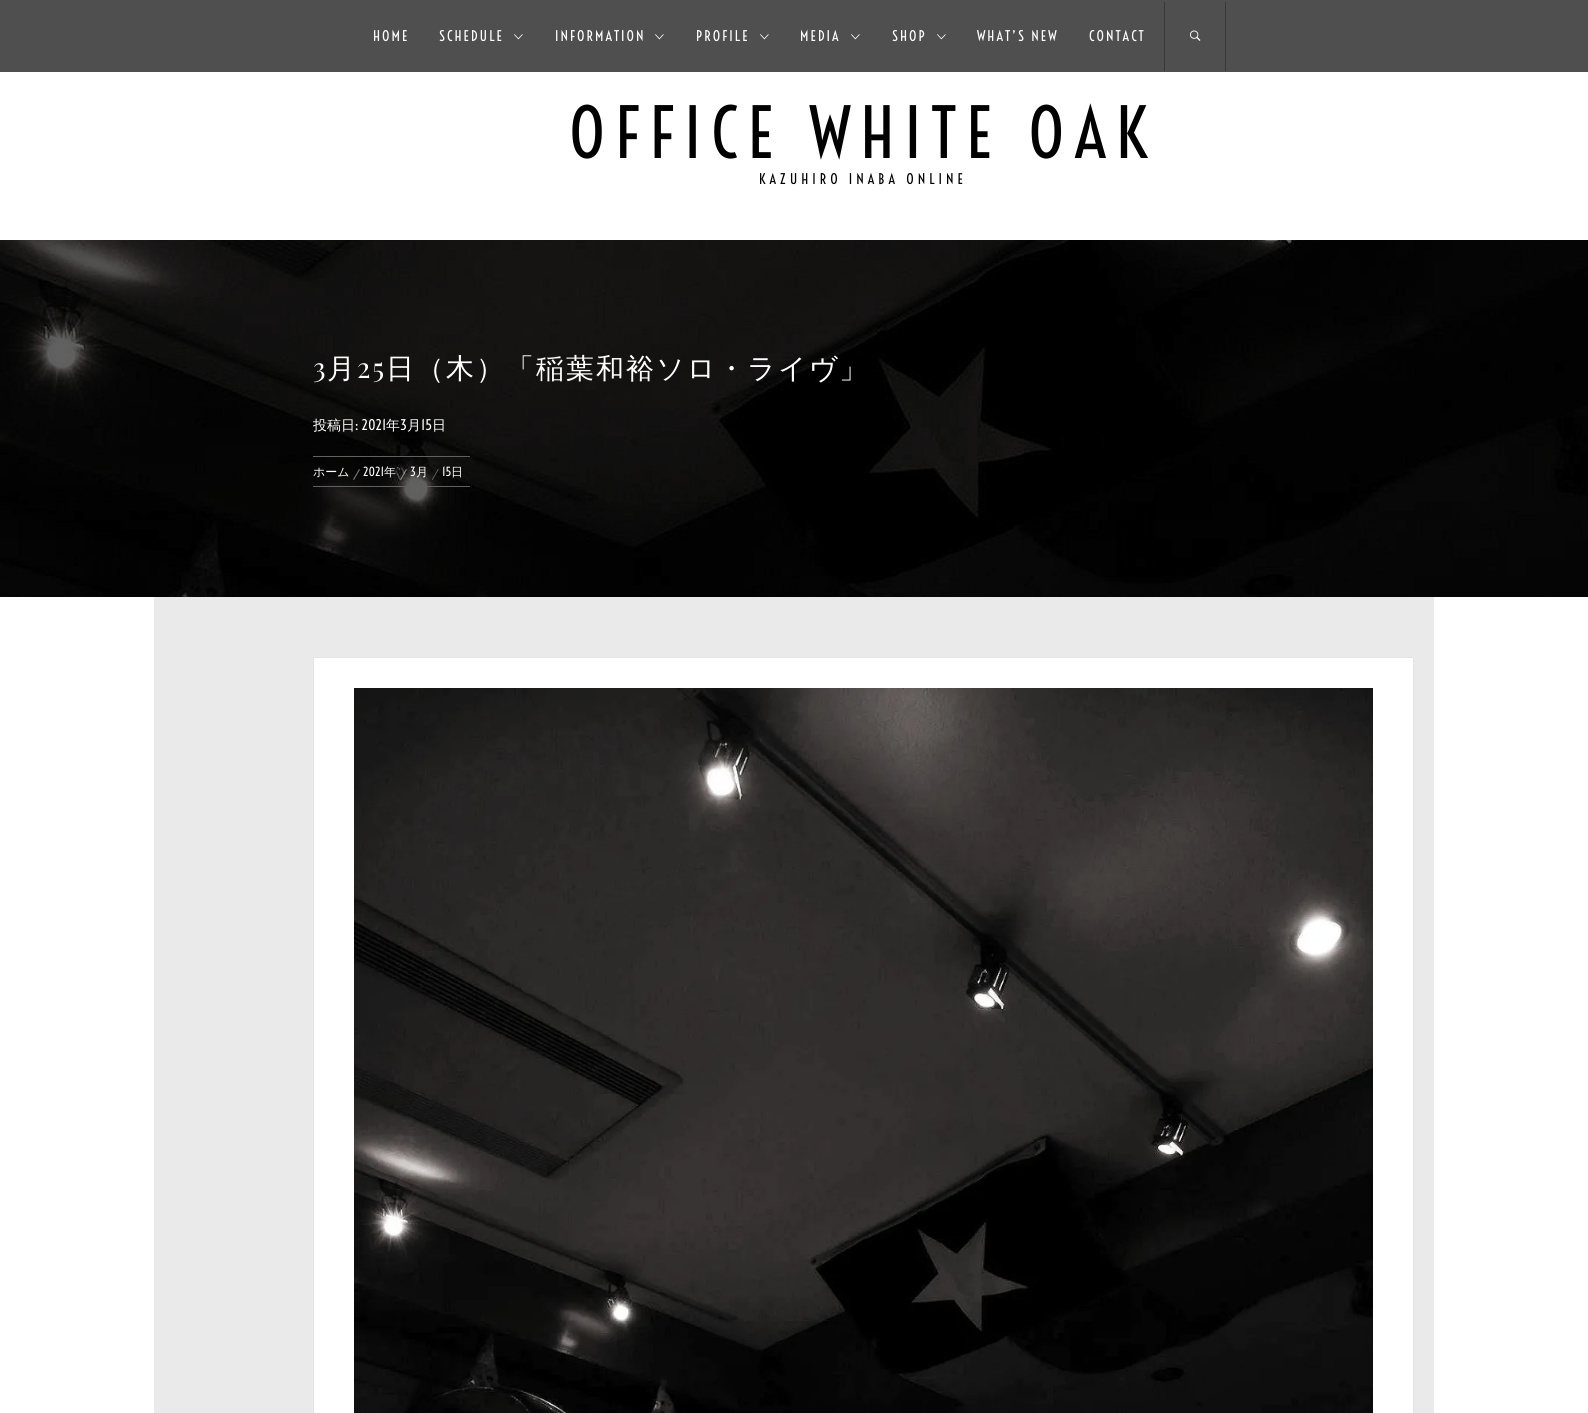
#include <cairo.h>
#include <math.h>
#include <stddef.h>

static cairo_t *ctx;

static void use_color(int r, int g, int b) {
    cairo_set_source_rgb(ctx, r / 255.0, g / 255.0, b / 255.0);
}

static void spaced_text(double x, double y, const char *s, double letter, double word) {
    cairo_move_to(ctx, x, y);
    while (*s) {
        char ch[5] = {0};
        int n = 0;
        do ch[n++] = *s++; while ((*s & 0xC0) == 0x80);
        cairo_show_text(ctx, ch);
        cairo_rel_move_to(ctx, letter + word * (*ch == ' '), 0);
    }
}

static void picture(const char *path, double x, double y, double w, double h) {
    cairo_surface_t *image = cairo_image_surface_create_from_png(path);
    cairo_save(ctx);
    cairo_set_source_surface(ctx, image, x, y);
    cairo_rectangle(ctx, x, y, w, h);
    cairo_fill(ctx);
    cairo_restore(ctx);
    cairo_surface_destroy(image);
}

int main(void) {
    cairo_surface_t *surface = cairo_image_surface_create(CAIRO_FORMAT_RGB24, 1588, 1413);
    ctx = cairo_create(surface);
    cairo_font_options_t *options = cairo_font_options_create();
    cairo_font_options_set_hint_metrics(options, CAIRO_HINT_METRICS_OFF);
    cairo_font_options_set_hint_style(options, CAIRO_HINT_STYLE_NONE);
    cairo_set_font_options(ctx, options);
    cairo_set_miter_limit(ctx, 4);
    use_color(255, 255, 255);
    cairo_paint(ctx);
    use_color(79, 79, 79);
    cairo_rectangle(ctx, 0, 0, 1588, 72);
    cairo_fill(ctx);
    cairo_select_font_face(ctx, "Voltaire", CAIRO_FONT_SLANT_NORMAL, CAIRO_FONT_WEIGHT_NORMAL);
    cairo_set_font_size(ctx, 14);
    use_color(255, 255, 255);
    spaced_text(373, 41, "HOME", 2, 0);
    spaced_text(439, 41, "SCHEDULE", 2, 0);
    picture("img1.png", 514, 34, 9, 6);
    spaced_text(555, 41, "INFORMATION", 2, 0);
    picture("img1.png", 655, 34, 9, 6);
    spaced_text(696, 41, "PROFILE", 2, 0);
    picture("img1.png", 760, 34, 9, 6);
    spaced_text(800, 41, "MEDIA", 2, 0);
    picture("img1.png", 851, 34, 9, 6);
    spaced_text(892, 41, "SHOP", 2, 0);
    picture("img1.png", 937, 34, 9, 6);
    spaced_text(977, 41, "WHAT’S NEW", 2, 0);
    spaced_text(1089, 41, "CONTACT", 2, 0);
    use_color(56, 56, 56);
    cairo_rectangle(ctx, 1225, 2, 1, 69);
    cairo_fill(ctx);
    cairo_rectangle(ctx, 1164, 2, 1, 69);
    cairo_fill(ctx);
    picture("img2.png", 1190, 30, 11, 11);
    cairo_set_font_size(ctx, 68);
    use_color(0, 0, 0);
    spaced_text(569, 158, "OFFICE WHITE OAK", 10, 0);
    cairo_set_font_size(ctx, 14);
    spaced_text(759, 184, "KAZUHIRO INABA ONLINE", 4, 0);
    picture("img3.png", 0, 240, 1588, 357);
    cairo_select_font_face(ctx, "Playfair Display", CAIRO_FONT_SLANT_NORMAL, CAIRO_FONT_WEIGHT_NORMAL);
    cairo_set_font_size(ctx, 28);
    use_color(255, 255, 255);
    spaced_text(313, 378, "3", 2, 0);
    cairo_select_font_face(ctx, "WenQuanYi Zen Hei Medium", CAIRO_FONT_SLANT_NORMAL, CAIRO_FONT_WEIGHT_NORMAL);
    spaced_text(327, 378, "月", 2, 0);
    cairo_select_font_face(ctx, "Playfair Display", CAIRO_FONT_SLANT_NORMAL, CAIRO_FONT_WEIGHT_NORMAL);
    spaced_text(357, 378, "25", 2, 0);
    cairo_select_font_face(ctx, "WenQuanYi Zen Hei Medium", CAIRO_FONT_SLANT_NORMAL, CAIRO_FONT_WEIGHT_NORMAL);
    spaced_text(386, 378, "日（木）「稲葉和裕ソロ・ライヴ」", 2, 0);
    cairo_set_font_size(ctx, 14);
    cairo_move_to(ctx, 313, 430);
    cairo_show_text(ctx, "投稿日");
    cairo_select_font_face(ctx, "Voltaire", CAIRO_FONT_SLANT_NORMAL, CAIRO_FONT_WEIGHT_NORMAL);
    cairo_move_to(ctx, 355, 430);
    cairo_show_text(ctx, ": 2021");
    cairo_select_font_face(ctx, "WenQuanYi Zen Hei Medium", CAIRO_FONT_SLANT_NORMAL, CAIRO_FONT_WEIGHT_NORMAL);
    cairo_move_to(ctx, 386, 430);
    cairo_show_text(ctx, "年");
    cairo_select_font_face(ctx, "Voltaire", CAIRO_FONT_SLANT_NORMAL, CAIRO_FONT_WEIGHT_NORMAL);
    cairo_move_to(ctx, 400, 430);
    cairo_show_text(ctx, "3");
    cairo_select_font_face(ctx, "WenQuanYi Zen Hei Medium", CAIRO_FONT_SLANT_NORMAL, CAIRO_FONT_WEIGHT_NORMAL);
    cairo_move_to(ctx, 407, 430);
    cairo_show_text(ctx, "月");
    cairo_select_font_face(ctx, "Voltaire", CAIRO_FONT_SLANT_NORMAL, CAIRO_FONT_WEIGHT_NORMAL);
    cairo_move_to(ctx, 421, 430);
    cairo_show_text(ctx, "15");
    cairo_select_font_face(ctx, "WenQuanYi Zen Hei Medium", CAIRO_FONT_SLANT_NORMAL, CAIRO_FONT_WEIGHT_NORMAL);
    cairo_move_to(ctx, 432, 430);
    cairo_show_text(ctx, "日");
    use_color(97, 97, 97);
    cairo_rectangle(ctx, 313, 456, 157, 1);
    cairo_fill(ctx);
    cairo_rectangle(ctx, 313, 486, 157, 1);
    cairo_fill(ctx);
    cairo_set_font_size(ctx, 12);
    use_color(255, 255, 255);
    cairo_move_to(ctx, 313, 476);
    cairo_show_text(ctx, "ホーム");
    cairo_set_source_rgba(ctx, 1, 1, 1, 0.45);
    cairo_new_path(ctx);
    cairo_move_to(ctx, 359, 469);
    cairo_line_to(ctx, 360, 469.5);
    cairo_line_to(ctx, 354, 480);
    cairo_line_to(ctx, 353, 479.5);
    cairo_close_path(ctx);
    cairo_fill(ctx);
    cairo_select_font_face(ctx, "Voltaire", CAIRO_FONT_SLANT_NORMAL, CAIRO_FONT_WEIGHT_NORMAL);
    use_color(255, 255, 255);
    cairo_move_to(ctx, 363, 476);
    cairo_show_text(ctx, "2021");
    cairo_select_font_face(ctx, "WenQuanYi Zen Hei Medium", CAIRO_FONT_SLANT_NORMAL, CAIRO_FONT_WEIGHT_NORMAL);
    cairo_move_to(ctx, 384, 476);
    cairo_show_text(ctx, "年");
    cairo_set_source_rgba(ctx, 1, 1, 1, 0.45);
    cairo_new_path(ctx);
    cairo_move_to(ctx, 406, 469);
    cairo_line_to(ctx, 407, 469.5);
    cairo_line_to(ctx, 401, 480);
    cairo_line_to(ctx, 400, 479.5);
    cairo_close_path(ctx);
    cairo_fill(ctx);
    cairo_select_font_face(ctx, "Voltaire", CAIRO_FONT_SLANT_NORMAL, CAIRO_FONT_WEIGHT_NORMAL);
    use_color(255, 255, 255);
    cairo_move_to(ctx, 410, 476);
    cairo_show_text(ctx, "3");
    cairo_select_font_face(ctx, "WenQuanYi Zen Hei Medium", CAIRO_FONT_SLANT_NORMAL, CAIRO_FONT_WEIGHT_NORMAL);
    cairo_move_to(ctx, 416, 476);
    cairo_show_text(ctx, "月");
    cairo_set_source_rgba(ctx, 1, 1, 1, 0.45);
    cairo_new_path(ctx);
    cairo_move_to(ctx, 438, 469);
    cairo_line_to(ctx, 438.5, 469.5);
    cairo_line_to(ctx, 432.5, 480);
    cairo_line_to(ctx, 432, 479.5);
    cairo_close_path(ctx);
    cairo_fill(ctx);
    cairo_select_font_face(ctx, "Voltaire", CAIRO_FONT_SLANT_NORMAL, CAIRO_FONT_WEIGHT_NORMAL);
    use_color(255, 255, 255);
    cairo_move_to(ctx, 442, 476);
    cairo_show_text(ctx, "15");
    cairo_select_font_face(ctx, "WenQuanYi Zen Hei Medium", CAIRO_FONT_SLANT_NORMAL, CAIRO_FONT_WEIGHT_NORMAL);
    cairo_move_to(ctx, 451, 476);
    cairo_show_text(ctx, "日");
    use_color(234, 234, 234);
    cairo_rectangle(ctx, 154, 597, 1280, 816);
    cairo_fill(ctx);
    use_color(255, 255, 255);
    cairo_rectangle(ctx, 313.5, 657.5, 1100, 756);
    cairo_fill_preserve(ctx);
    use_color(228, 228, 228);
    cairo_set_line_width(ctx, 1);
    cairo_stroke(ctx);
    picture("img4.png", 354, 688, 1019, 725);
    cairo_surface_write_to_png(surface, "result.png");
    cairo_font_options_destroy(options);
    cairo_destroy(ctx);
    cairo_surface_destroy(surface);
    return 0;
}
